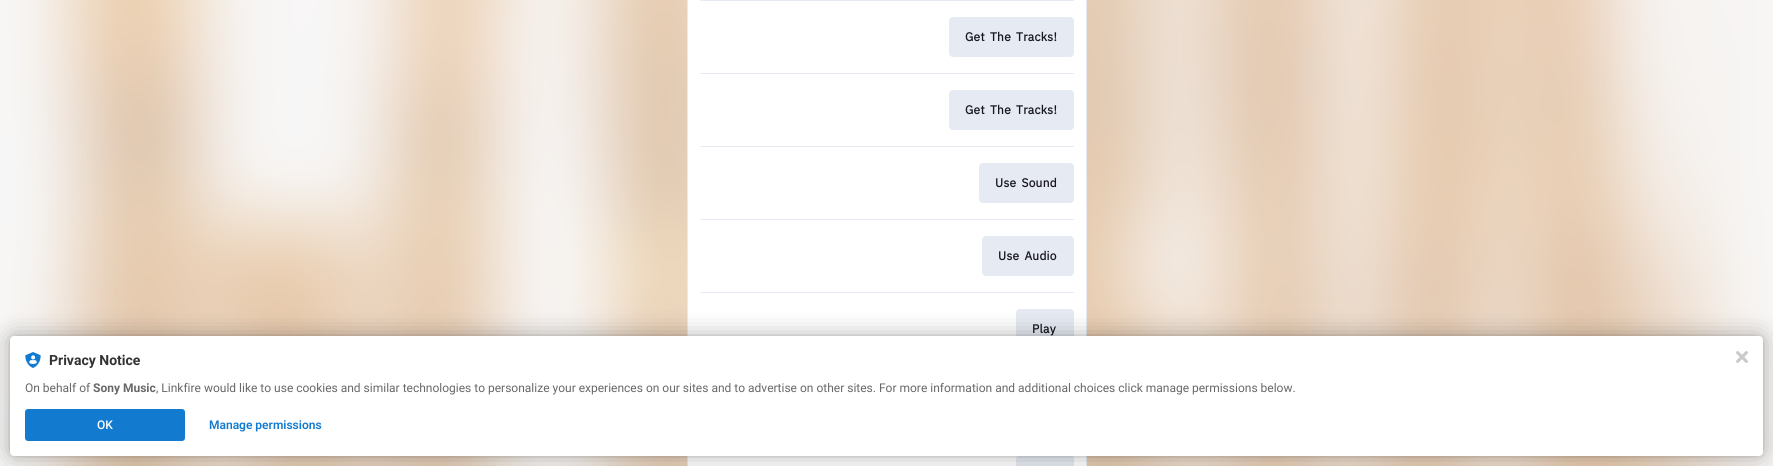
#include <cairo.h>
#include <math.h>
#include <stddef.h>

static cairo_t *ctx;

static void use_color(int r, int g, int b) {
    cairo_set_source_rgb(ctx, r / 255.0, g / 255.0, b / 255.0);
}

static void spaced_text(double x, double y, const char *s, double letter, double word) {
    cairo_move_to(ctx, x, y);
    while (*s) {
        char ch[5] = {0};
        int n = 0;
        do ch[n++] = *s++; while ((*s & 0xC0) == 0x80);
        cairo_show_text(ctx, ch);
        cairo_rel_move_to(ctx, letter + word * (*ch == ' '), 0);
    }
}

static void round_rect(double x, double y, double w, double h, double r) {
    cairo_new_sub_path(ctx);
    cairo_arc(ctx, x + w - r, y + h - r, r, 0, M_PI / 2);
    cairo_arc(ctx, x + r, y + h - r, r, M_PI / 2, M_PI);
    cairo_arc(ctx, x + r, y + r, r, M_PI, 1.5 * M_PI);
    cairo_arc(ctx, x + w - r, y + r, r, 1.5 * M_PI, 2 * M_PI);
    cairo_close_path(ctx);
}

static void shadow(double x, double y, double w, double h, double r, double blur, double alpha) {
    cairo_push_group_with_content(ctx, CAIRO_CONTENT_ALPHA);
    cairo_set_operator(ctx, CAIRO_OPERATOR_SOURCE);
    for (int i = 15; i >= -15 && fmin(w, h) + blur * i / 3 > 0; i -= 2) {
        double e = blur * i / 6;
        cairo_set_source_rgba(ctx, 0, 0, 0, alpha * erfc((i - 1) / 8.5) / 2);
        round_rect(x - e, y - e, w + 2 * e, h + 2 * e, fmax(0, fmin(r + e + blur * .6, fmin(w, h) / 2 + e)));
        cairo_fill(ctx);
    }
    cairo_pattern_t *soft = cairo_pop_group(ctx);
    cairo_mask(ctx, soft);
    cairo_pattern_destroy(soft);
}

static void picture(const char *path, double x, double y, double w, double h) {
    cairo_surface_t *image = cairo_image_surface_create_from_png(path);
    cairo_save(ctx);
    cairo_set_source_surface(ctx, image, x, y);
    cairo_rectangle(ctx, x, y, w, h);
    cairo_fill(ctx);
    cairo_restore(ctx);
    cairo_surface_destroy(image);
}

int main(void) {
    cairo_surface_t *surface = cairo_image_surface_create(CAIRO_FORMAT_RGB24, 1773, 466);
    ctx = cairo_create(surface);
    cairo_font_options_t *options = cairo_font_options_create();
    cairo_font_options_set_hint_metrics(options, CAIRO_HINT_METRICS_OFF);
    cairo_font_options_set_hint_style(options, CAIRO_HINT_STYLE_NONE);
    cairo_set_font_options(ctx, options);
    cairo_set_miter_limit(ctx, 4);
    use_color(255, 255, 255);
    cairo_paint(ctx);
    picture("img1.png", 0, 0, 1773, 466);
    use_color(255, 255, 255);
    cairo_rectangle(ctx, 687.5, -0.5, 399, 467);
    cairo_fill_preserve(ctx);
    use_color(230, 234, 242);
    cairo_set_line_width(ctx, 1);
    cairo_stroke(ctx);
    cairo_rectangle(ctx, 700, 0, 374, 1);
    cairo_fill(ctx);
    round_rect(949, 17, 125, 40, 4);
    cairo_fill(ctx);
    cairo_select_font_face(ctx, "IBM Plex Sans", CAIRO_FONT_SLANT_NORMAL, CAIRO_FONT_WEIGHT_BOLD);
    cairo_set_font_size(ctx, 12);
    use_color(24, 23, 33);
    spaced_text(965, 41, "Get The Tracks!", 0.25, 2);
    use_color(230, 234, 242);
    cairo_rectangle(ctx, 700, 73, 374, 1);
    cairo_fill(ctx);
    round_rect(949, 90, 125, 40, 4);
    cairo_fill(ctx);
    use_color(24, 23, 33);
    spaced_text(965, 114, "Get The Tracks!", 0.25, 2);
    use_color(230, 234, 242);
    cairo_rectangle(ctx, 700, 146, 374, 1);
    cairo_fill(ctx);
    round_rect(979, 163, 95, 40, 4);
    cairo_fill(ctx);
    use_color(24, 23, 33);
    spaced_text(995, 187, "Use Sound", 0.25, 2);
    use_color(230, 234, 242);
    cairo_rectangle(ctx, 700, 219, 374, 1);
    cairo_fill(ctx);
    round_rect(982, 236, 92, 40, 4);
    cairo_fill(ctx);
    use_color(24, 23, 33);
    spaced_text(998, 260, "Use Audio", 0.25, 2);
    use_color(230, 234, 242);
    cairo_rectangle(ctx, 700, 292, 374, 1);
    cairo_fill(ctx);
    round_rect(1016, 309, 58, 40, 4);
    cairo_fill(ctx);
    use_color(24, 23, 33);
    spaced_text(1032, 333, "Play", 0.25, 0);
    use_color(230, 234, 242);
    round_rect(1016, 455, 58, 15, 4);
    cairo_fill(ctx);
    use_color(0, 0, 0);
    shadow(10, 336, 1753, 120, 4, 2, 0.12);
    shadow(10, 336, 1753, 120, 4, 12, 0.3);
    use_color(255, 255, 255);
    round_rect(10, 336, 1753, 120, 4);
    cairo_fill(ctx);
    picture("img2.png", 25, 352, 16, 16);
    cairo_select_font_face(ctx, "Roboto", CAIRO_FONT_SLANT_NORMAL, CAIRO_FONT_WEIGHT_BOLD);
    cairo_set_font_size(ctx, 14);
    use_color(50, 50, 50);
    cairo_move_to(ctx, 49, 365);
    cairo_show_text(ctx, "Privacy Notice");
    cairo_select_font_face(ctx, "Roboto", CAIRO_FONT_SLANT_NORMAL, CAIRO_FONT_WEIGHT_NORMAL);
    cairo_set_font_size(ctx, 12);
    use_color(104, 104, 104);
    cairo_move_to(ctx, 25, 392);
    cairo_show_text(ctx, "On behalf of");
    cairo_select_font_face(ctx, "Roboto", CAIRO_FONT_SLANT_NORMAL, CAIRO_FONT_WEIGHT_BOLD);
    cairo_move_to(ctx, 93, 392);
    cairo_show_text(ctx, "Sony Music");
    cairo_select_font_face(ctx, "Roboto", CAIRO_FONT_SLANT_NORMAL, CAIRO_FONT_WEIGHT_NORMAL);
    cairo_move_to(ctx, 156, 392);
    cairo_show_text(ctx, ", Linkfire would like to use cookies and similar technologies to personalize your experiences on our sites and to advertise on other sites. For more information and additional choices click manage permissions below.");
    use_color(19, 123, 207);
    round_rect(25, 409, 160, 32, 3);
    cairo_fill(ctx);
    cairo_select_font_face(ctx, "Roboto Medium", CAIRO_FONT_SLANT_NORMAL, CAIRO_FONT_WEIGHT_NORMAL);
    use_color(255, 255, 255);
    cairo_move_to(ctx, 97, 429);
    cairo_show_text(ctx, "OK");
    cairo_select_font_face(ctx, "Roboto SemiBold", CAIRO_FONT_SLANT_NORMAL, CAIRO_FONT_WEIGHT_NORMAL);
    use_color(19, 123, 207);
    cairo_move_to(ctx, 209, 429);
    cairo_show_text(ctx, "Manage permissions");
    picture("img3.png", 1736, 351, 12, 12);
    cairo_surface_write_to_png(surface, "result.png");
    cairo_font_options_destroy(options);
    cairo_destroy(ctx);
    cairo_surface_destroy(surface);
    return 0;
}
